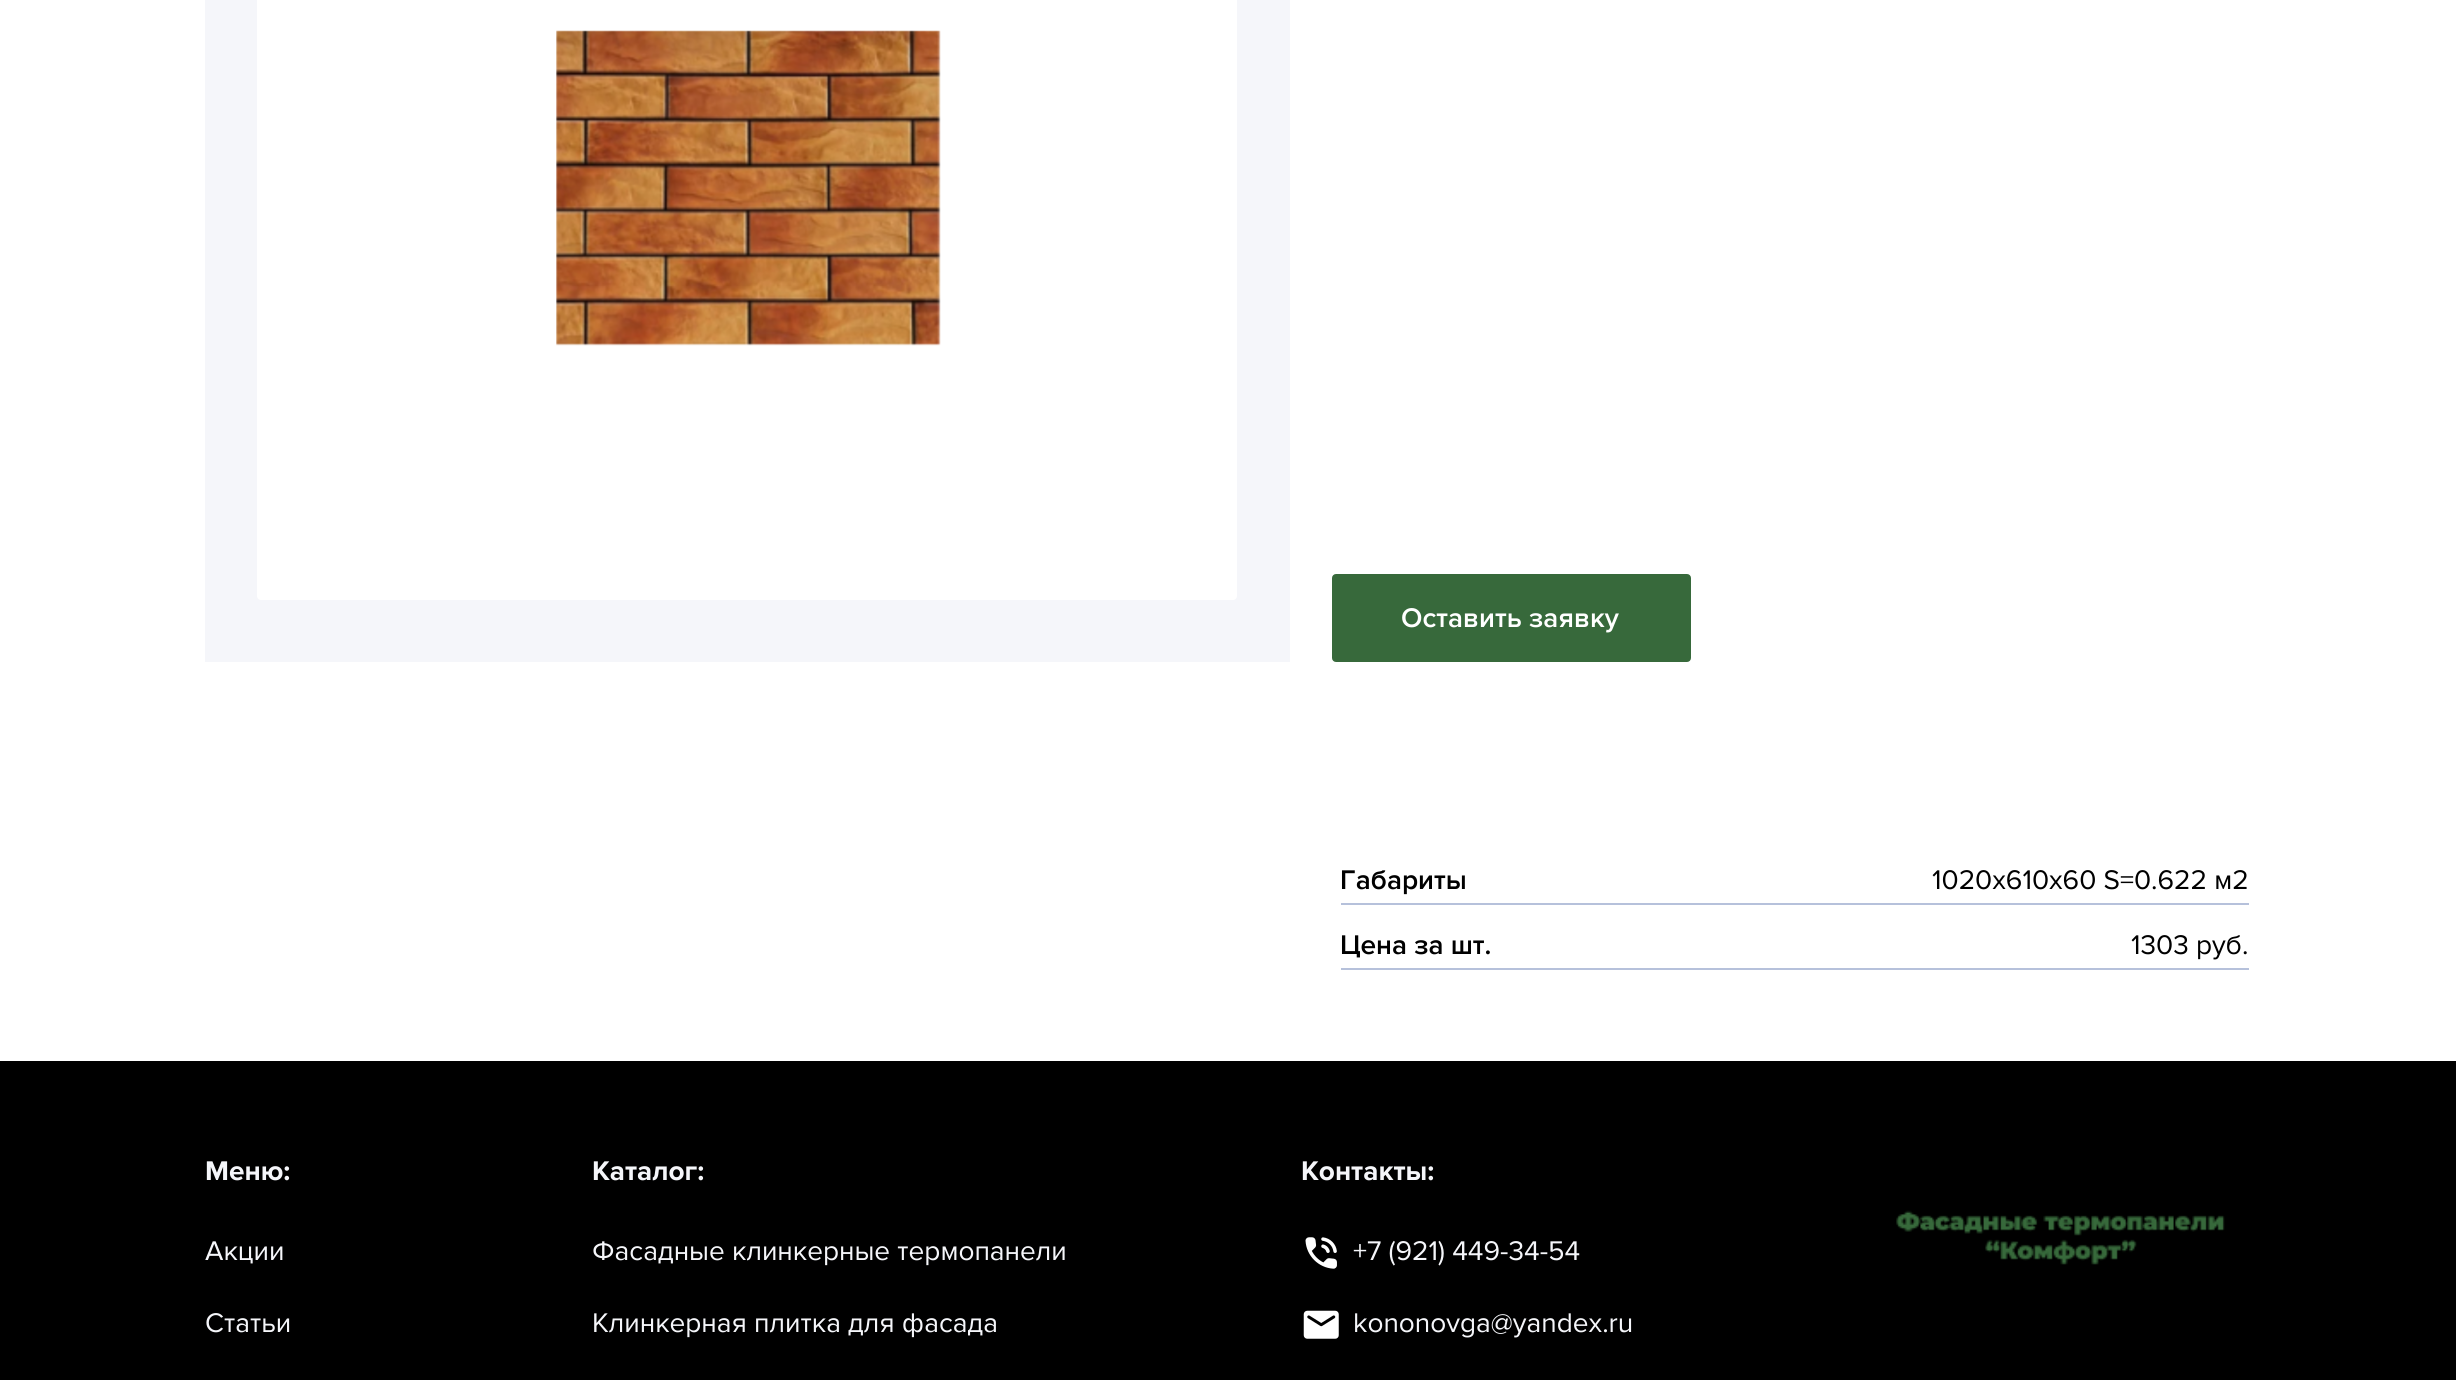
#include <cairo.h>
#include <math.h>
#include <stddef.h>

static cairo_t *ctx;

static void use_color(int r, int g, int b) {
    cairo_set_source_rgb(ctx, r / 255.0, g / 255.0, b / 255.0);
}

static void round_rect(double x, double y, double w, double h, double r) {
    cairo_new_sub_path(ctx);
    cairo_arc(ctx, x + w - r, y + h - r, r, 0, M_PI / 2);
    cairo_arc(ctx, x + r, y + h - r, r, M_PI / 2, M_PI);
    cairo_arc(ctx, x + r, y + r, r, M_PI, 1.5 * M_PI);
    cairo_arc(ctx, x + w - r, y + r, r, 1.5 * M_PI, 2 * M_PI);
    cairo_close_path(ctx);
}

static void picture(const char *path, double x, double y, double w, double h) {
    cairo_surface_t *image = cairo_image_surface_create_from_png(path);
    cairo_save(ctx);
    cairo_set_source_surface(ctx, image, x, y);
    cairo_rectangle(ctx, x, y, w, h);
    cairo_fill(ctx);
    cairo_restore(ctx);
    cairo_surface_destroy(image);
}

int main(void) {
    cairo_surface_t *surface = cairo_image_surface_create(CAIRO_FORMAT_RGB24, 2456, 1380);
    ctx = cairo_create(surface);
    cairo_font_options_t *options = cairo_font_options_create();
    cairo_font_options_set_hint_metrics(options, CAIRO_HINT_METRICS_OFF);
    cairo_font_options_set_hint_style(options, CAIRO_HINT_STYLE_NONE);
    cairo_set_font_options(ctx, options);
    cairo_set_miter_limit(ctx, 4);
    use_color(255, 255, 255);
    cairo_paint(ctx);
    use_color(245, 246, 250);
    cairo_rectangle(ctx, 205, 0, 1085, 662);
    cairo_fill(ctx);
    use_color(255, 255, 255);
    round_rect(257, -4, 980, 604, 4);
    cairo_fill(ctx);
    picture("img1.png", 556, 30, 385, 316);
    use_color(55, 105, 59);
    round_rect(1333, 575, 357, 86, 3);
    cairo_fill_preserve(ctx);
    cairo_stroke(ctx);
    cairo_select_font_face(ctx, "Proxima Nova SemiBold", CAIRO_FONT_SLANT_NORMAL, CAIRO_FONT_WEIGHT_NORMAL);
    cairo_set_font_size(ctx, 28);
    use_color(255, 255, 255);
    cairo_move_to(ctx, 1401, 627);
    cairo_show_text(ctx, "Оставить заявку");
    use_color(182, 193, 219);
    cairo_rectangle(ctx, 1341, 903, 908, 2);
    cairo_fill(ctx);
    use_color(0, 0, 0);
    cairo_move_to(ctx, 1340, 889);
    cairo_show_text(ctx, "Габариты");
    cairo_select_font_face(ctx, "Proxima Nova", CAIRO_FONT_SLANT_NORMAL, CAIRO_FONT_WEIGHT_NORMAL);
    cairo_move_to(ctx, 1932, 889);
    cairo_show_text(ctx, "1020х610х60 S=0.622 м2");
    use_color(182, 193, 219);
    cairo_rectangle(ctx, 1341, 968, 908, 2);
    cairo_fill(ctx);
    cairo_select_font_face(ctx, "Proxima Nova SemiBold", CAIRO_FONT_SLANT_NORMAL, CAIRO_FONT_WEIGHT_NORMAL);
    use_color(0, 0, 0);
    cairo_move_to(ctx, 1340, 954);
    cairo_show_text(ctx, "Цена за шт.");
    cairo_select_font_face(ctx, "Proxima Nova", CAIRO_FONT_SLANT_NORMAL, CAIRO_FONT_WEIGHT_NORMAL);
    cairo_move_to(ctx, 2131, 954);
    cairo_show_text(ctx, "1303 руб.");
    cairo_rectangle(ctx, 0, 1061, 2456, 319);
    cairo_fill(ctx);
    cairo_select_font_face(ctx, "Proxima Nova", CAIRO_FONT_SLANT_NORMAL, CAIRO_FONT_WEIGHT_BOLD);
    use_color(245, 246, 250);
    cairo_move_to(ctx, 205, 1180);
    cairo_show_text(ctx, "Меню:");
    cairo_select_font_face(ctx, "Proxima Nova", CAIRO_FONT_SLANT_NORMAL, CAIRO_FONT_WEIGHT_NORMAL);
    cairo_move_to(ctx, 205, 1260);
    cairo_show_text(ctx, "Акции");
    cairo_move_to(ctx, 205, 1332);
    cairo_show_text(ctx, "Статьи");
    cairo_select_font_face(ctx, "Proxima Nova", CAIRO_FONT_SLANT_NORMAL, CAIRO_FONT_WEIGHT_BOLD);
    cairo_move_to(ctx, 592, 1180);
    cairo_show_text(ctx, "Каталог:");
    cairo_select_font_face(ctx, "Proxima Nova", CAIRO_FONT_SLANT_NORMAL, CAIRO_FONT_WEIGHT_NORMAL);
    cairo_move_to(ctx, 592, 1260);
    cairo_show_text(ctx, "Фасадные клинкерные термопанели");
    cairo_move_to(ctx, 592, 1332);
    cairo_show_text(ctx, "Клинкерная плитка для фасада");
    cairo_select_font_face(ctx, "Proxima Nova", CAIRO_FONT_SLANT_NORMAL, CAIRO_FONT_WEIGHT_BOLD);
    cairo_move_to(ctx, 1301, 1180);
    cairo_show_text(ctx, "Контакты:");
    picture("img2.png", 1305, 1237, 32, 32);
    cairo_select_font_face(ctx, "Proxima Nova", CAIRO_FONT_SLANT_NORMAL, CAIRO_FONT_WEIGHT_NORMAL);
    cairo_move_to(ctx, 1353, 1260);
    cairo_show_text(ctx, "+7 (921) 449-34-54");
    picture("img3.png", 1303, 1310, 36, 29);
    cairo_move_to(ctx, 1353, 1332);
    cairo_show_text(ctx, "kononovga@yandex.ru");
    picture("img4.png", 1896, 1210, 329, 55);
    cairo_surface_write_to_png(surface, "result.png");
    cairo_font_options_destroy(options);
    cairo_destroy(ctx);
    cairo_surface_destroy(surface);
    return 0;
}
